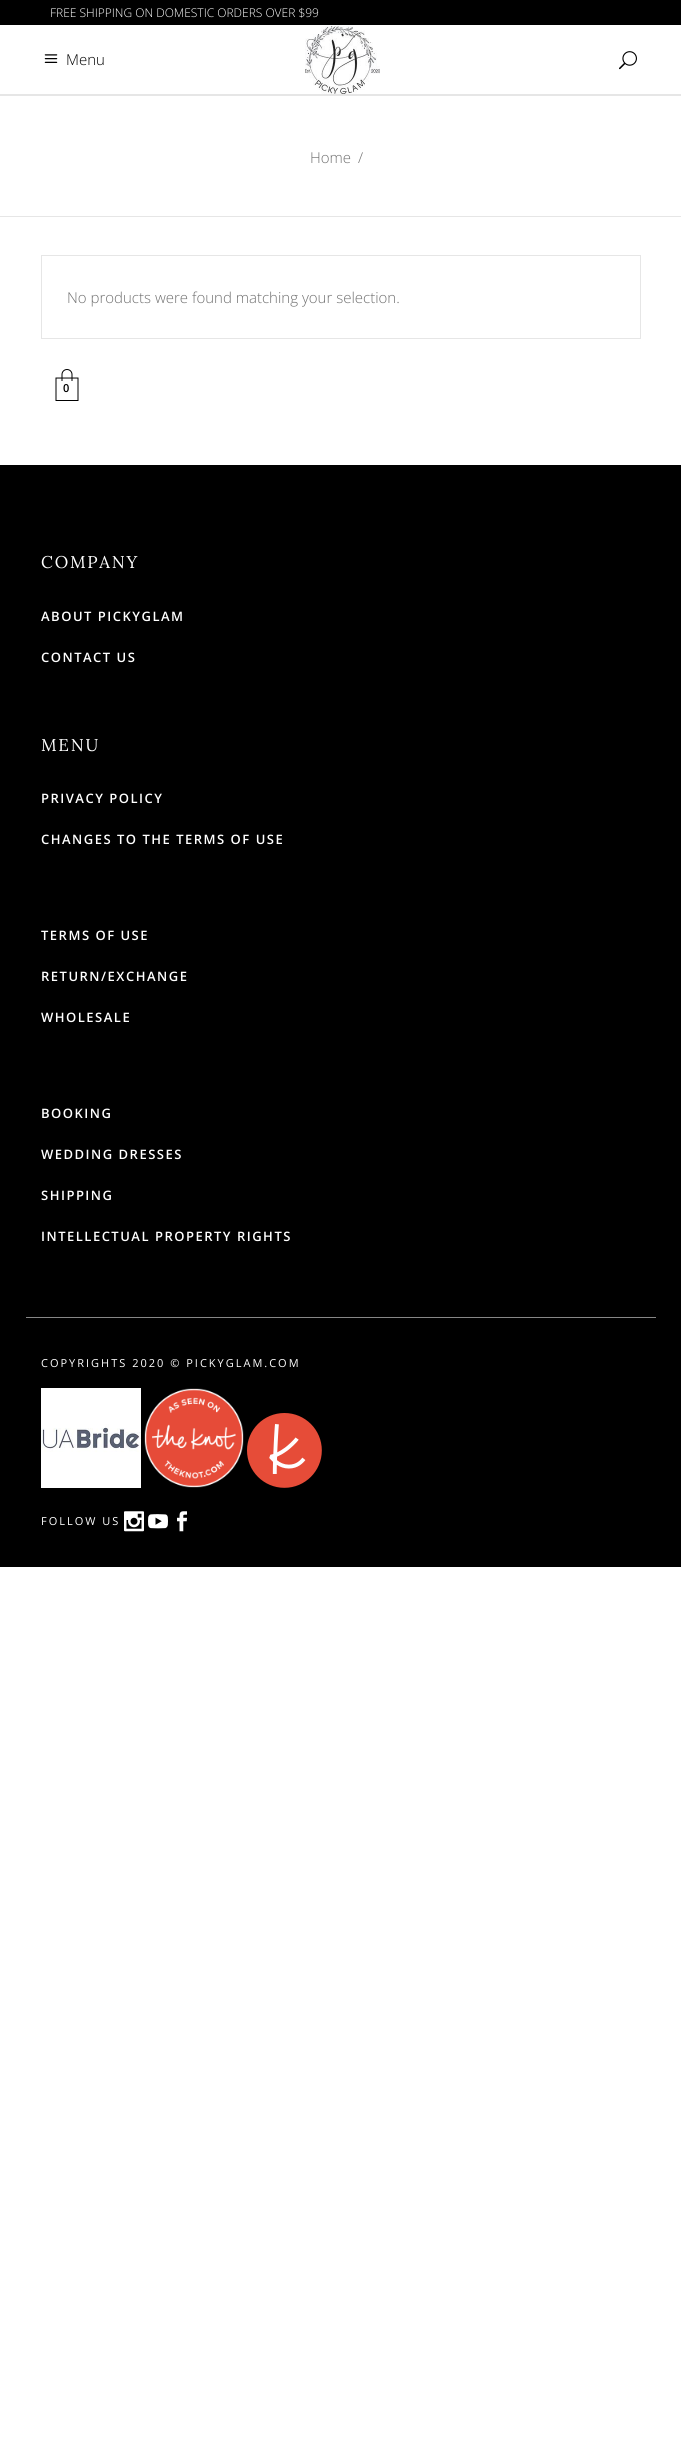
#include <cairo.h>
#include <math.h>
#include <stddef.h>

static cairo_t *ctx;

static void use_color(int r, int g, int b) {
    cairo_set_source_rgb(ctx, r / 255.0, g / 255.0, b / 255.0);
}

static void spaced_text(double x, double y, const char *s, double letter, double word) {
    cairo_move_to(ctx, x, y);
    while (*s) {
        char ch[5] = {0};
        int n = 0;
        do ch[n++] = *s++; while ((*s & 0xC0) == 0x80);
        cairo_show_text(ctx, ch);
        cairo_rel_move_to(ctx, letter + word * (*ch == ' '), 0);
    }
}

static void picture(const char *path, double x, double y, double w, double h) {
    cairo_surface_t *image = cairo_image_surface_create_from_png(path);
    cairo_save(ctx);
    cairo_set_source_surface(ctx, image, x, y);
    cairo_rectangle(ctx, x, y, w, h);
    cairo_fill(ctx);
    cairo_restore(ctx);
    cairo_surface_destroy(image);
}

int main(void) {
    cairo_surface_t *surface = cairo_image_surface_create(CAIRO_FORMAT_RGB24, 681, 2462);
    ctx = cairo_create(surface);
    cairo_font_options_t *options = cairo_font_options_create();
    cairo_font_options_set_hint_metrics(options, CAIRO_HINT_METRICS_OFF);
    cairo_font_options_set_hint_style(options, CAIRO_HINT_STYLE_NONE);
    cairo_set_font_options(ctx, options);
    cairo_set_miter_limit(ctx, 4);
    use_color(255, 255, 255);
    cairo_paint(ctx);
    use_color(0, 0, 0);
    cairo_rectangle(ctx, 0, 0, 681, 25);
    cairo_fill(ctx);
    cairo_select_font_face(ctx, "Open Sans Light", CAIRO_FONT_SLANT_NORMAL, CAIRO_FONT_WEIGHT_NORMAL);
    cairo_set_font_size(ctx, 12);
    use_color(255, 255, 255);
    cairo_move_to(ctx, 50, 17);
    cairo_show_text(ctx, "FREE SHIPPING ON DOMESTIC ORDERS OVER $99");
    picture("img1.png", 44, 54, 14, 9);
    cairo_set_font_size(ctx, 15);
    use_color(0, 0, 0);
    cairo_move_to(ctx, 66, 65);
    cairo_show_text(ctx, "Menu");
    picture("img2.png", 305, 26, 75, 68);
    picture("img3.png", 619, 51, 18, 19);
    use_color(230, 230, 230);
    cairo_rectangle(ctx, 0, 94, 681, 2);
    cairo_fill(ctx);
    cairo_rectangle(ctx, 0, 216, 681, 1);
    cairo_fill(ctx);
    use_color(113, 113, 113);
    cairo_move_to(ctx, 310, 163);
    cairo_show_text(ctx, "Home");
    cairo_move_to(ctx, 358, 163);
    cairo_show_text(ctx, "/");
    cairo_rectangle(ctx, 41.5, 255.5, 599, 83);
    use_color(230, 230, 230);
    cairo_set_line_width(ctx, 1);
    cairo_stroke(ctx);
    use_color(113, 113, 113);
    cairo_move_to(ctx, 67, 303);
    cairo_show_text(ctx, "No products were found matching your selection.");
    picture("img4.png", 55, 369, 24, 32);
    cairo_select_font_face(ctx, "Open Sans SemiBold", CAIRO_FONT_SLANT_NORMAL, CAIRO_FONT_WEIGHT_NORMAL);
    cairo_set_font_size(ctx, 11);
    use_color(0, 0, 0);
    cairo_move_to(ctx, 63, 392);
    cairo_show_text(ctx, "0");
    cairo_rectangle(ctx, 0, 465, 681, 1102);
    cairo_fill(ctx);
    cairo_select_font_face(ctx, "Lora", CAIRO_FONT_SLANT_NORMAL, CAIRO_FONT_WEIGHT_NORMAL);
    cairo_set_font_size(ctx, 17);
    use_color(255, 255, 255);
    spaced_text(41, 568, "COMPANY", 1.75, 0);
    cairo_select_font_face(ctx, "Open Sans SemiBold", CAIRO_FONT_SLANT_NORMAL, CAIRO_FONT_WEIGHT_NORMAL);
    cairo_set_font_size(ctx, 13);
    spaced_text(41, 621, "ABOUT PICKYGLAM", 1.5, 0);
    spaced_text(41, 662, "CONTACT US", 1.5, 0);
    cairo_select_font_face(ctx, "Lora", CAIRO_FONT_SLANT_NORMAL, CAIRO_FONT_WEIGHT_NORMAL);
    cairo_set_font_size(ctx, 17);
    spaced_text(41, 751, "MENU", 1.75, 0);
    cairo_select_font_face(ctx, "Open Sans SemiBold", CAIRO_FONT_SLANT_NORMAL, CAIRO_FONT_WEIGHT_NORMAL);
    cairo_set_font_size(ctx, 13);
    spaced_text(41, 803, "PRIVACY POLICY", 1.5, 0);
    spaced_text(41, 844, "CHANGES TO THE TERMS OF USE", 1.5, 0);
    spaced_text(41, 940, "TERMS OF USE", 1.5, 0);
    spaced_text(41, 981, "RETURN/EXCHANGE", 1.5, 0);
    spaced_text(41, 1022, "WHOLESALE", 1.5, 0);
    spaced_text(41, 1118, "BOOKING", 1.5, 0);
    spaced_text(41, 1159, "WEDDING DRESSES", 1.5, 0);
    spaced_text(41, 1200, "SHIPPING", 1.5, 0);
    spaced_text(41, 1241, "INTELLECTUAL PROPERTY RIGHTS", 1.5, 0);
    use_color(134, 134, 134);
    cairo_rectangle(ctx, 26, 1317, 630, 1);
    cairo_fill(ctx);
    cairo_select_font_face(ctx, "Open Sans", CAIRO_FONT_SLANT_NORMAL, CAIRO_FONT_WEIGHT_NORMAL);
    cairo_set_font_size(ctx, 11);
    use_color(255, 255, 255);
    spaced_text(41, 1367, "COPYRIGHTS 2020 © PICKYGLAM.COM", 2, 0);
    picture("img5.png", 41, 1388, 100, 100);
    picture("img6.png", 144, 1388, 100, 100);
    picture("img7.png", 247, 1413, 75, 75);
    spaced_text(41, 1525, "FOLLOW US", 2, 0);
    picture("img8.png", 124, 1511, 20, 21);
    picture("img9.png", 148, 1514, 20, 15);
    picture("img10.png", 177, 1511, 10, 21);
    cairo_surface_write_to_png(surface, "result.png");
    cairo_font_options_destroy(options);
    cairo_destroy(ctx);
    cairo_surface_destroy(surface);
    return 0;
}
